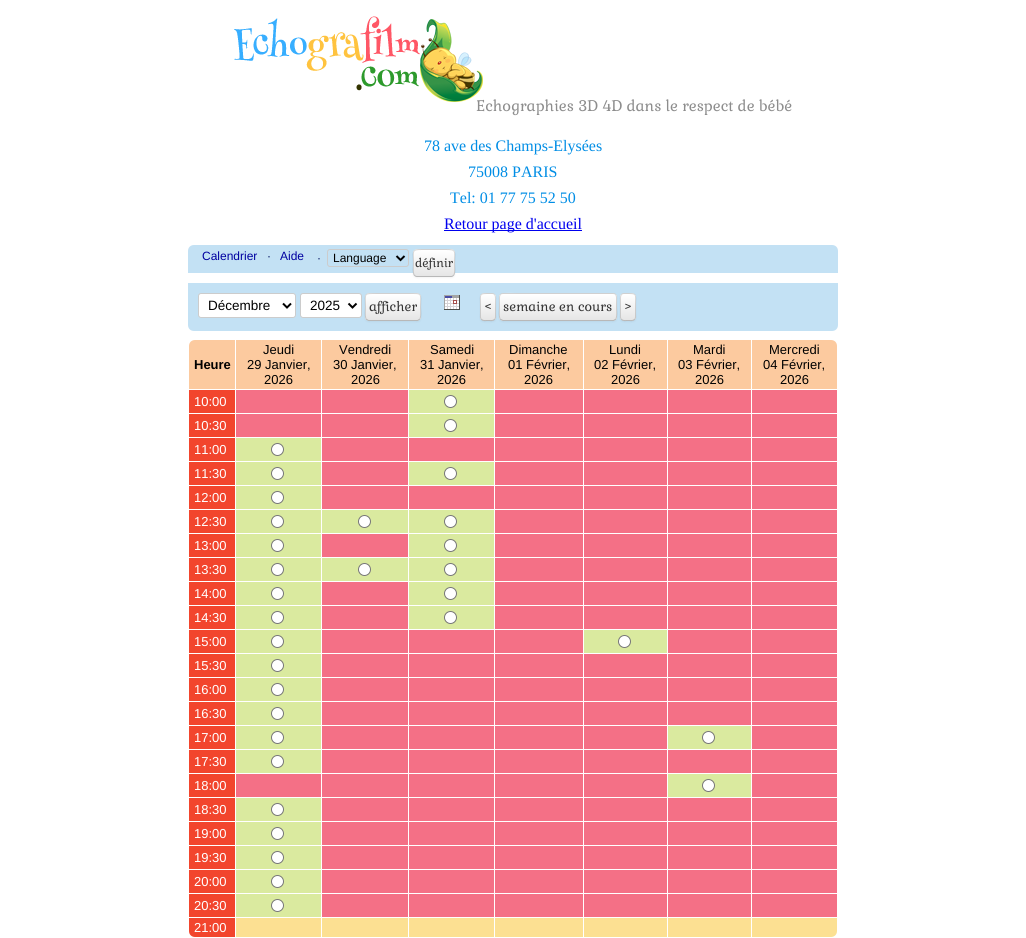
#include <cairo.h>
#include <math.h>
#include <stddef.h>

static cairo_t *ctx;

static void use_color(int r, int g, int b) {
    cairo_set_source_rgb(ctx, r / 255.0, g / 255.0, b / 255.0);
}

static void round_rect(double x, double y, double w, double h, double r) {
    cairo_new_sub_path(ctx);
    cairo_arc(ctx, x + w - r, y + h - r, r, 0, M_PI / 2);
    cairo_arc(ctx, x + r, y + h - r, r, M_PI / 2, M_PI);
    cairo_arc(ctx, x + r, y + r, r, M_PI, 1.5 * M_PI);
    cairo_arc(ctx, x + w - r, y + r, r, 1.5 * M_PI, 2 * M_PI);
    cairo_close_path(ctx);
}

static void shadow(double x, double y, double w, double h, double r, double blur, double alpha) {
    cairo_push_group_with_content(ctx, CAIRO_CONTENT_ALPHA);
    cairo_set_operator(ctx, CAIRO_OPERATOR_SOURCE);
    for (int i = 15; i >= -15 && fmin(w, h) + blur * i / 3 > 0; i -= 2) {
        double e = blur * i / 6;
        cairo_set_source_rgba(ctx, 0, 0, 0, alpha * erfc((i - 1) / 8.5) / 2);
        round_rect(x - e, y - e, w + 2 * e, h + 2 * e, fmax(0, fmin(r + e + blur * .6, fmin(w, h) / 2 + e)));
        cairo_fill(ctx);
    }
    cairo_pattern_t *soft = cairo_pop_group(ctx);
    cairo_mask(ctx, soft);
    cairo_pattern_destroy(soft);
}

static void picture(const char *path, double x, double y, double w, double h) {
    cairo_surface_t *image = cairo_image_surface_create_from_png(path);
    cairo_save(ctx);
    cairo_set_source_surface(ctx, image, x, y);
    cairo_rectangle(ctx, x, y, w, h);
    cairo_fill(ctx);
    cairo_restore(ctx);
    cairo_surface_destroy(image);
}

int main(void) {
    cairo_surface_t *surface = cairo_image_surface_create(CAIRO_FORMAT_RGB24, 1026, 938);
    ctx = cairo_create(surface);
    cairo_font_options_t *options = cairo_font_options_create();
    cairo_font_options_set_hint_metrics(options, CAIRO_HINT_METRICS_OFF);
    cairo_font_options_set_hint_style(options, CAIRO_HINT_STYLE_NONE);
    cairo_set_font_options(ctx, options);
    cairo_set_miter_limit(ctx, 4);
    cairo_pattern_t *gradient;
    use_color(255, 255, 255);
    cairo_paint(ctx);
    picture("img1.png", 234, 16, 249, 86);
    cairo_select_font_face(ctx, "Gabriela", CAIRO_FONT_SLANT_NORMAL, CAIRO_FONT_WEIGHT_NORMAL);
    cairo_set_font_size(ctx, 15);
    use_color(141, 141, 141);
    cairo_move_to(ctx, 476, 111);
    cairo_show_text(ctx, "Echographies 3D 4D dans le respect de bébé");
    cairo_select_font_face(ctx, "Liberation Serif", CAIRO_FONT_SLANT_NORMAL, CAIRO_FONT_WEIGHT_NORMAL);
    cairo_set_font_size(ctx, 16);
    use_color(0, 141, 229);
    cairo_move_to(ctx, 424, 151);
    cairo_show_text(ctx, "78 ave des Champs-Elysées");
    cairo_move_to(ctx, 468, 177);
    cairo_show_text(ctx, "75008 PARIS");
    cairo_move_to(ctx, 450, 203);
    cairo_show_text(ctx, "Tel: 01 77 75 52 50");
    use_color(0, 0, 238);
    cairo_rectangle(ctx, 444, 230, 138, 1);
    cairo_fill(ctx);
    cairo_move_to(ctx, 444, 229);
    cairo_show_text(ctx, "Retour page d'accueil");
    use_color(195, 225, 244);
    cairo_new_path(ctx);
    cairo_move_to(ctx, 194, 245);
    cairo_line_to(ctx, 832, 245);
    cairo_curve_to(ctx, 835.5, 245, 838, 247.5, 838, 251);
    cairo_line_to(ctx, 838, 273);
    cairo_line_to(ctx, 188, 273);
    cairo_line_to(ctx, 188, 251);
    cairo_curve_to(ctx, 188, 247.5, 190.5, 245, 194, 245);
    cairo_close_path(ctx);
    cairo_fill(ctx);
    cairo_select_font_face(ctx, "Liberation Sans", CAIRO_FONT_SLANT_NORMAL, CAIRO_FONT_WEIGHT_NORMAL);
    cairo_set_font_size(ctx, 12);
    use_color(0, 0, 160);
    cairo_move_to(ctx, 202, 260);
    cairo_show_text(ctx, "Calendrier");
    use_color(0, 16, 96);
    cairo_move_to(ctx, 267, 260);
    cairo_show_text(ctx, "·");
    use_color(0, 0, 160);
    cairo_move_to(ctx, 280, 260);
    cairo_show_text(ctx, "Aide");
    use_color(0, 16, 96);
    cairo_move_to(ctx, 317, 262);
    cairo_show_text(ctx, "·");
    round_rect(327.5, 249.5, 81, 17, 2.5);
    use_color(204, 204, 204);
    cairo_set_line_width(ctx, 1);
    cairo_stroke(ctx);
    cairo_new_path(ctx);
    cairo_move_to(ctx, 396.5, 256);
    cairo_line_to(ctx, 400.5, 260);
    cairo_line_to(ctx, 404.5, 256);
    use_color(0, 0, 0);
    cairo_set_line_width(ctx, 2);
    cairo_stroke(ctx);
    cairo_move_to(ctx, 333, 262);
    cairo_show_text(ctx, "Language");
    use_color(0, 0, 0);
    shadow(413, 250, 42, 28, 4, 1, 0.05);
    use_color(245, 245, 245);
    round_rect(413, 249, 42, 28, 4);
    cairo_fill(ctx);
    cairo_save(ctx);
    round_rect(413, 249, 42, 28, 4);
    cairo_clip(ctx);
    gradient = cairo_pattern_create_linear(434, 250, 434, 276);
    cairo_pattern_add_color_stop_rgba(gradient, 0, 1, 1, 1, 1);
    cairo_pattern_add_color_stop_rgba(gradient, 1, 0.902, 0.902, 0.902, 1);
    cairo_set_source(ctx, gradient);
    cairo_pattern_destroy(gradient);
    cairo_rectangle(ctx, 413, 250, 42, 26);
    cairo_fill(ctx);
    cairo_restore(ctx);
    cairo_new_path(ctx);
    cairo_move_to(ctx, 453.5, 275.5);
    cairo_curve_to(ctx, 453, 276, 452, 276.5, 451, 276.5);
    cairo_line_to(ctx, 417, 276.5);
    cairo_curve_to(ctx, 416, 276.5, 415, 276, 414.5, 275.5);
    use_color(184, 184, 184);
    cairo_set_line_width(ctx, 1);
    cairo_stroke(ctx);
    cairo_new_path(ctx);
    cairo_move_to(ctx, 414.5, 275.5);
    cairo_curve_to(ctx, 412.5, 273, 413.5, 265.5, 413.5, 263);
    cairo_curve_to(ctx, 413.5, 251, 411, 249.5, 422.5, 249.5);
    cairo_line_to(ctx, 445.5, 249.5);
    cairo_curve_to(ctx, 457, 249.5, 454.5, 251, 454.5, 263);
    cairo_curve_to(ctx, 454.5, 265.5, 455.5, 273, 453.5, 275.5);
    cairo_set_source_rgba(ctx, 0, 0, 0, 0.15);
    cairo_stroke(ctx);
    cairo_select_font_face(ctx, "Gabriela", CAIRO_FONT_SLANT_NORMAL, CAIRO_FONT_WEIGHT_NORMAL);
    use_color(51, 51, 51);
    cairo_move_to(ctx, 415, 267);
    cairo_show_text(ctx, "définir");
    use_color(195, 225, 244);
    cairo_new_path(ctx);
    cairo_move_to(ctx, 188, 283);
    cairo_line_to(ctx, 838, 283);
    cairo_line_to(ctx, 838, 325);
    cairo_curve_to(ctx, 838, 328.5, 835.5, 331, 832, 331);
    cairo_line_to(ctx, 194, 331);
    cairo_curve_to(ctx, 190.5, 331, 188, 328.5, 188, 325);
    cairo_close_path(ctx);
    cairo_fill(ctx);
    use_color(255, 255, 255);
    round_rect(198.5, 293.5, 97, 24, 2.5);
    cairo_fill_preserve(ctx);
    use_color(204, 204, 204);
    cairo_stroke(ctx);
    cairo_new_path(ctx);
    cairo_move_to(ctx, 283, 303.5);
    cairo_line_to(ctx, 287, 307.5);
    cairo_line_to(ctx, 291, 303.5);
    use_color(0, 0, 0);
    cairo_set_line_width(ctx, 2);
    cairo_stroke(ctx);
    cairo_select_font_face(ctx, "Liberation Sans", CAIRO_FONT_SLANT_NORMAL, CAIRO_FONT_WEIGHT_NORMAL);
    cairo_set_font_size(ctx, 13.5);
    cairo_move_to(ctx, 208, 310);
    cairo_show_text(ctx, "Décembre");
    use_color(255, 255, 255);
    round_rect(300.5, 293.5, 61, 24, 2.5);
    cairo_fill_preserve(ctx);
    use_color(204, 204, 204);
    cairo_set_line_width(ctx, 1);
    cairo_stroke(ctx);
    cairo_new_path(ctx);
    cairo_move_to(ctx, 348.5, 303.5);
    cairo_line_to(ctx, 352.5, 307.5);
    cairo_line_to(ctx, 356.5, 303.5);
    use_color(0, 0, 0);
    cairo_set_line_width(ctx, 2);
    cairo_stroke(ctx);
    cairo_move_to(ctx, 310, 310);
    cairo_show_text(ctx, "2025");
    use_color(0, 0, 0);
    shadow(365, 294, 56, 28, 4, 1, 0.05);
    use_color(245, 245, 245);
    round_rect(365, 293, 56, 28, 4);
    cairo_fill(ctx);
    cairo_save(ctx);
    round_rect(365, 293, 56, 28, 4);
    cairo_clip(ctx);
    gradient = cairo_pattern_create_linear(393, 294, 393, 320);
    cairo_pattern_add_color_stop_rgba(gradient, 0, 1, 1, 1, 1);
    cairo_pattern_add_color_stop_rgba(gradient, 1, 0.902, 0.902, 0.902, 1);
    cairo_set_source(ctx, gradient);
    cairo_pattern_destroy(gradient);
    cairo_rectangle(ctx, 365, 294, 56, 26);
    cairo_fill(ctx);
    cairo_restore(ctx);
    use_color(255, 255, 255);
    cairo_new_path(ctx);
    cairo_move_to(ctx, 369, 295);
    cairo_line_to(ctx, 417, 295);
    cairo_curve_to(ctx, 419, 295, 420, 296, 420, 298);
    cairo_curve_to(ctx, 420, 292, 413, 294, 409, 294);
    cairo_line_to(ctx, 377, 294);
    cairo_curve_to(ctx, 373, 294, 366, 292, 366, 298);
    cairo_curve_to(ctx, 366, 296, 367, 295, 369, 295);
    cairo_close_path(ctx);
    cairo_fill(ctx);
    cairo_new_path(ctx);
    cairo_move_to(ctx, 419.5, 319.5);
    cairo_line_to(ctx, 417.5, 320.5);
    cairo_line_to(ctx, 368.5, 320.5);
    cairo_line_to(ctx, 366.5, 319.5);
    cairo_set_source_rgba(ctx, 0, 0, 0, 0.25);
    cairo_set_line_width(ctx, 1);
    cairo_stroke(ctx);
    cairo_new_path(ctx);
    cairo_move_to(ctx, 366.5, 319.5);
    cairo_curve_to(ctx, 364.5, 317, 365.5, 309.5, 365.5, 307);
    cairo_curve_to(ctx, 365.5, 293, 363, 293.5, 377, 293.5);
    cairo_line_to(ctx, 409, 293.5);
    cairo_curve_to(ctx, 423, 293.5, 420.5, 293, 420.5, 307);
    cairo_curve_to(ctx, 420.5, 309.5, 421.5, 317, 419.5, 319.5);
    cairo_set_source_rgba(ctx, 0, 0, 0, 0.15);
    cairo_stroke(ctx);
    cairo_select_font_face(ctx, "Gabriela", CAIRO_FONT_SLANT_NORMAL, CAIRO_FONT_WEIGHT_NORMAL);
    cairo_set_font_size(ctx, 13);
    use_color(51, 51, 51);
    cairo_move_to(ctx, 369, 311);
    cairo_show_text(ctx, "afficher");
    picture("img2.png", 444, 295, 16, 15);
    use_color(0, 0, 0);
    shadow(480, 294, 16, 28, 4, 1, 0.05);
    use_color(245, 245, 245);
    round_rect(480, 293, 16, 28, 4);
    cairo_fill(ctx);
    cairo_save(ctx);
    round_rect(480, 293, 16, 28, 4);
    cairo_clip(ctx);
    gradient = cairo_pattern_create_linear(488, 294, 488, 320);
    cairo_pattern_add_color_stop_rgba(gradient, 0, 1, 1, 1, 1);
    cairo_pattern_add_color_stop_rgba(gradient, 1, 0.902, 0.902, 0.902, 1);
    cairo_set_source(ctx, gradient);
    cairo_pattern_destroy(gradient);
    cairo_rectangle(ctx, 480, 294, 16, 26);
    cairo_fill(ctx);
    cairo_restore(ctx);
    cairo_new_path(ctx);
    cairo_move_to(ctx, 494.5, 319.5);
    cairo_curve_to(ctx, 493, 321, 490, 320.5, 488, 320.5);
    cairo_curve_to(ctx, 486, 320.5, 483, 321, 481.5, 319.5);
    cairo_set_source_rgba(ctx, 0, 0, 0, 0.25);
    cairo_stroke(ctx);
    cairo_new_path(ctx);
    cairo_move_to(ctx, 481.5, 319.5);
    cairo_curve_to(ctx, 480, 318, 480.5, 315.5, 480.5, 313.5);
    cairo_line_to(ctx, 480.5, 303.5);
    cairo_curve_to(ctx, 480.5, 294.5, 479, 293.5, 488, 293.5);
    cairo_line_to(ctx, 492.5, 293.5);
    cairo_curve_to(ctx, 496, 294, 495.5, 298, 495.5, 300.5);
    cairo_line_to(ctx, 495.5, 313.5);
    cairo_curve_to(ctx, 495.5, 315.5, 496, 318, 494.5, 319.5);
    cairo_set_source_rgba(ctx, 0, 0, 0, 0.15);
    cairo_stroke(ctx);
    use_color(51, 51, 51);
    cairo_move_to(ctx, 484, 311);
    cairo_show_text(ctx, "<");
    use_color(0, 0, 0);
    shadow(499, 294, 118, 28, 4, 1, 0.05);
    use_color(245, 245, 245);
    round_rect(499, 293, 118, 28, 4);
    cairo_fill(ctx);
    cairo_save(ctx);
    round_rect(499, 293, 118, 28, 4);
    cairo_clip(ctx);
    gradient = cairo_pattern_create_linear(558, 294, 558, 320);
    cairo_pattern_add_color_stop_rgba(gradient, 0, 1, 1, 1, 1);
    cairo_pattern_add_color_stop_rgba(gradient, 1, 0.902, 0.902, 0.902, 1);
    cairo_set_source(ctx, gradient);
    cairo_pattern_destroy(gradient);
    cairo_rectangle(ctx, 499, 294, 118, 26);
    cairo_fill(ctx);
    cairo_restore(ctx);
    cairo_set_source_rgba(ctx, 1, 1, 1, 0.2);
    cairo_new_path(ctx);
    cairo_move_to(ctx, 503, 295);
    cairo_line_to(ctx, 613, 295);
    cairo_curve_to(ctx, 615, 295, 616, 296, 616, 298);
    cairo_curve_to(ctx, 616, 296, 615, 294, 613, 294);
    cairo_line_to(ctx, 521, 294);
    cairo_curve_to(ctx, 520, 294, 500, 289, 500, 298);
    cairo_curve_to(ctx, 500, 296, 501, 295, 503, 295);
    cairo_close_path(ctx);
    cairo_fill(ctx);
    cairo_new_path(ctx);
    cairo_move_to(ctx, 615.5, 319.5);
    cairo_line_to(ctx, 613.5, 320.5);
    cairo_line_to(ctx, 521.5, 320.5);
    cairo_line_to(ctx, 503, 320.5);
    cairo_line_to(ctx, 500.5, 319.5);
    cairo_set_source_rgba(ctx, 0, 0, 0, 0.25);
    cairo_stroke(ctx);
    cairo_new_path(ctx);
    cairo_move_to(ctx, 500.5, 319.5);
    cairo_curve_to(ctx, 498.5, 317, 499.5, 309.5, 499.5, 307);
    cairo_line_to(ctx, 499.5, 300.5);
    cairo_curve_to(ctx, 499.5, 297.5, 499, 293.5, 503, 293.5);
    cairo_line_to(ctx, 613, 293.5);
    cairo_curve_to(ctx, 617, 293.5, 616.5, 297.5, 616.5, 300.5);
    cairo_line_to(ctx, 616.5, 307);
    cairo_curve_to(ctx, 616.5, 309.5, 617.5, 317, 615.5, 319.5);
    cairo_set_source_rgba(ctx, 0, 0, 0, 0.15);
    cairo_stroke(ctx);
    use_color(51, 51, 51);
    cairo_move_to(ctx, 503, 311);
    cairo_show_text(ctx, "semaine en cours");
    use_color(0, 0, 0);
    shadow(620, 294, 16, 28, 4, 1, 0.05);
    use_color(245, 245, 245);
    round_rect(620, 293, 16, 28, 4);
    cairo_fill(ctx);
    cairo_save(ctx);
    round_rect(620, 293, 16, 28, 4);
    cairo_clip(ctx);
    gradient = cairo_pattern_create_linear(628, 294, 628, 320);
    cairo_pattern_add_color_stop_rgba(gradient, 0, 1, 1, 1, 1);
    cairo_pattern_add_color_stop_rgba(gradient, 1, 0.902, 0.902, 0.902, 1);
    cairo_set_source(ctx, gradient);
    cairo_pattern_destroy(gradient);
    cairo_rectangle(ctx, 620, 294, 16, 26);
    cairo_fill(ctx);
    cairo_restore(ctx);
    cairo_new_path(ctx);
    cairo_move_to(ctx, 634.5, 319.5);
    cairo_curve_to(ctx, 633, 321, 630, 320.5, 628, 320.5);
    cairo_curve_to(ctx, 626, 320.5, 623, 321, 621.5, 319.5);
    cairo_set_source_rgba(ctx, 0, 0, 0, 0.25);
    cairo_stroke(ctx);
    cairo_new_path(ctx);
    cairo_move_to(ctx, 621.5, 319.5);
    cairo_curve_to(ctx, 620, 318, 620.5, 315.5, 620.5, 313.5);
    cairo_line_to(ctx, 620.5, 300.5);
    cairo_curve_to(ctx, 620.5, 298, 620, 294, 623.5, 293.5);
    cairo_line_to(ctx, 628, 293.5);
    cairo_curve_to(ctx, 637, 293.5, 635.5, 294.5, 635.5, 303.5);
    cairo_line_to(ctx, 635.5, 313.5);
    cairo_curve_to(ctx, 635.5, 315.5, 636, 318, 634.5, 319.5);
    cairo_set_source_rgba(ctx, 0, 0, 0, 0.15);
    cairo_stroke(ctx);
    use_color(51, 51, 51);
    cairo_move_to(ctx, 624, 311);
    cairo_show_text(ctx, ">");
    use_color(252, 202, 159);
    cairo_new_path(ctx);
    cairo_move_to(ctx, 195, 340);
    cairo_line_to(ctx, 235, 340);
    cairo_line_to(ctx, 235, 389);
    cairo_line_to(ctx, 189, 389);
    cairo_line_to(ctx, 189, 346);
    cairo_curve_to(ctx, 189, 342.5, 191.5, 340, 195, 340);
    cairo_close_path(ctx);
    cairo_fill(ctx);
    cairo_select_font_face(ctx, "Liberation Sans", CAIRO_FONT_SLANT_NORMAL, CAIRO_FONT_WEIGHT_BOLD);
    use_color(0, 0, 0);
    cairo_move_to(ctx, 194, 369);
    cairo_show_text(ctx, "Heure");
    use_color(252, 202, 159);
    cairo_rectangle(ctx, 236, 340, 85, 49);
    cairo_fill(ctx);
    cairo_select_font_face(ctx, "Liberation Sans", CAIRO_FONT_SLANT_NORMAL, CAIRO_FONT_WEIGHT_NORMAL);
    use_color(0, 0, 0);
    cairo_move_to(ctx, 263, 354);
    cairo_show_text(ctx, "Jeudi");
    cairo_move_to(ctx, 247, 369);
    cairo_show_text(ctx, "29 Janvier,");
    cairo_move_to(ctx, 264, 384);
    cairo_show_text(ctx, "2026");
    use_color(252, 202, 159);
    cairo_rectangle(ctx, 322, 340, 86, 49);
    cairo_fill(ctx);
    use_color(0, 0, 0);
    cairo_move_to(ctx, 339, 354);
    cairo_show_text(ctx, "Vendredi");
    cairo_move_to(ctx, 333, 369);
    cairo_show_text(ctx, "30 Janvier,");
    cairo_move_to(ctx, 351, 384);
    cairo_show_text(ctx, "2026");
    use_color(252, 202, 159);
    cairo_rectangle(ctx, 409, 340, 85, 49);
    cairo_fill(ctx);
    use_color(0, 0, 0);
    cairo_move_to(ctx, 430, 354);
    cairo_show_text(ctx, "Samedi");
    cairo_move_to(ctx, 420, 369);
    cairo_show_text(ctx, "31 Janvier,");
    cairo_move_to(ctx, 437, 384);
    cairo_show_text(ctx, "2026");
    use_color(252, 202, 159);
    cairo_rectangle(ctx, 495, 340, 88, 49);
    cairo_fill(ctx);
    use_color(0, 0, 0);
    cairo_move_to(ctx, 509, 354);
    cairo_show_text(ctx, "Dimanche");
    cairo_move_to(ctx, 508, 369);
    cairo_show_text(ctx, "01 Février,");
    cairo_move_to(ctx, 524, 384);
    cairo_show_text(ctx, "2026");
    use_color(252, 202, 159);
    cairo_rectangle(ctx, 584, 340, 83, 49);
    cairo_fill(ctx);
    use_color(0, 0, 0);
    cairo_move_to(ctx, 609, 354);
    cairo_show_text(ctx, "Lundi");
    cairo_move_to(ctx, 594, 369);
    cairo_show_text(ctx, "02 Février,");
    cairo_move_to(ctx, 611, 384);
    cairo_show_text(ctx, "2026");
    use_color(252, 202, 159);
    cairo_rectangle(ctx, 668, 340, 83, 49);
    cairo_fill(ctx);
    use_color(0, 0, 0);
    cairo_move_to(ctx, 693, 354);
    cairo_show_text(ctx, "Mardi");
    cairo_move_to(ctx, 678, 369);
    cairo_show_text(ctx, "03 Février,");
    cairo_move_to(ctx, 695, 384);
    cairo_show_text(ctx, "2026");
    use_color(252, 202, 159);
    cairo_new_path(ctx);
    cairo_move_to(ctx, 752, 340);
    cairo_line_to(ctx, 831, 340);
    cairo_curve_to(ctx, 834.5, 340, 837, 342.5, 837, 346);
    cairo_line_to(ctx, 837, 389);
    cairo_line_to(ctx, 752, 389);
    cairo_close_path(ctx);
    cairo_fill(ctx);
    use_color(0, 0, 0);
    cairo_move_to(ctx, 769, 354);
    cairo_show_text(ctx, "Mercredi");
    cairo_move_to(ctx, 763, 369);
    cairo_show_text(ctx, "04 Février,");
    cairo_move_to(ctx, 780, 384);
    cairo_show_text(ctx, "2026");
    use_color(242, 69, 45);
    cairo_rectangle(ctx, 189, 390, 46, 23);
    cairo_fill(ctx);
    use_color(255, 255, 255);
    cairo_move_to(ctx, 194, 406);
    cairo_show_text(ctx, "10:00");
    use_color(244, 112, 134);
    cairo_rectangle(ctx, 236, 390, 85, 23);
    cairo_fill(ctx);
    cairo_rectangle(ctx, 322, 390, 86, 23);
    cairo_fill(ctx);
    use_color(218, 234, 159);
    cairo_rectangle(ctx, 409, 390, 85, 23);
    cairo_fill(ctx);
    use_color(255, 255, 255);
    cairo_arc(ctx, 450.5, 401.5, 6, 0, 2 * M_PI);
    cairo_fill_preserve(ctx);
    use_color(118, 118, 118);
    cairo_stroke(ctx);
    use_color(244, 112, 134);
    cairo_rectangle(ctx, 495, 390, 88, 23);
    cairo_fill(ctx);
    cairo_rectangle(ctx, 584, 390, 83, 23);
    cairo_fill(ctx);
    cairo_rectangle(ctx, 668, 390, 83, 23);
    cairo_fill(ctx);
    cairo_rectangle(ctx, 752, 390, 85, 23);
    cairo_fill(ctx);
    use_color(242, 69, 45);
    cairo_rectangle(ctx, 189, 414, 46, 23);
    cairo_fill(ctx);
    use_color(255, 255, 255);
    cairo_move_to(ctx, 194, 430);
    cairo_show_text(ctx, "10:30");
    use_color(244, 112, 134);
    cairo_rectangle(ctx, 236, 414, 85, 23);
    cairo_fill(ctx);
    cairo_rectangle(ctx, 322, 414, 86, 23);
    cairo_fill(ctx);
    use_color(218, 234, 159);
    cairo_rectangle(ctx, 409, 414, 85, 23);
    cairo_fill(ctx);
    use_color(255, 255, 255);
    cairo_arc(ctx, 450.5, 425.5, 6, 0, 2 * M_PI);
    cairo_fill_preserve(ctx);
    use_color(118, 118, 118);
    cairo_stroke(ctx);
    use_color(244, 112, 134);
    cairo_rectangle(ctx, 495, 414, 88, 23);
    cairo_fill(ctx);
    cairo_rectangle(ctx, 584, 414, 83, 23);
    cairo_fill(ctx);
    cairo_rectangle(ctx, 668, 414, 83, 23);
    cairo_fill(ctx);
    cairo_rectangle(ctx, 752, 414, 85, 23);
    cairo_fill(ctx);
    use_color(242, 69, 45);
    cairo_rectangle(ctx, 189, 438, 46, 23);
    cairo_fill(ctx);
    use_color(255, 255, 255);
    cairo_move_to(ctx, 194, 454);
    cairo_show_text(ctx, "11:00");
    use_color(218, 234, 159);
    cairo_rectangle(ctx, 236, 438, 85, 23);
    cairo_fill(ctx);
    use_color(255, 255, 255);
    cairo_arc(ctx, 277.5, 449.5, 6, 0, 2 * M_PI);
    cairo_fill_preserve(ctx);
    use_color(118, 118, 118);
    cairo_stroke(ctx);
    use_color(244, 112, 134);
    cairo_rectangle(ctx, 322, 438, 86, 23);
    cairo_fill(ctx);
    cairo_rectangle(ctx, 409, 438, 85, 23);
    cairo_fill(ctx);
    cairo_rectangle(ctx, 495, 438, 88, 23);
    cairo_fill(ctx);
    cairo_rectangle(ctx, 584, 438, 83, 23);
    cairo_fill(ctx);
    cairo_rectangle(ctx, 668, 438, 83, 23);
    cairo_fill(ctx);
    cairo_rectangle(ctx, 752, 438, 85, 23);
    cairo_fill(ctx);
    use_color(242, 69, 45);
    cairo_rectangle(ctx, 189, 462, 46, 23);
    cairo_fill(ctx);
    use_color(255, 255, 255);
    cairo_move_to(ctx, 194, 478);
    cairo_show_text(ctx, "11:30");
    use_color(218, 234, 159);
    cairo_rectangle(ctx, 236, 462, 85, 23);
    cairo_fill(ctx);
    use_color(255, 255, 255);
    cairo_arc(ctx, 277.5, 473.5, 6, 0, 2 * M_PI);
    cairo_fill_preserve(ctx);
    use_color(118, 118, 118);
    cairo_stroke(ctx);
    use_color(244, 112, 134);
    cairo_rectangle(ctx, 322, 462, 86, 23);
    cairo_fill(ctx);
    use_color(218, 234, 159);
    cairo_rectangle(ctx, 409, 462, 85, 23);
    cairo_fill(ctx);
    use_color(255, 255, 255);
    cairo_arc(ctx, 450.5, 473.5, 6, 0, 2 * M_PI);
    cairo_fill_preserve(ctx);
    use_color(118, 118, 118);
    cairo_stroke(ctx);
    use_color(244, 112, 134);
    cairo_rectangle(ctx, 495, 462, 88, 23);
    cairo_fill(ctx);
    cairo_rectangle(ctx, 584, 462, 83, 23);
    cairo_fill(ctx);
    cairo_rectangle(ctx, 668, 462, 83, 23);
    cairo_fill(ctx);
    cairo_rectangle(ctx, 752, 462, 85, 23);
    cairo_fill(ctx);
    use_color(242, 69, 45);
    cairo_rectangle(ctx, 189, 486, 46, 23);
    cairo_fill(ctx);
    use_color(255, 255, 255);
    cairo_move_to(ctx, 194, 502);
    cairo_show_text(ctx, "12:00");
    use_color(218, 234, 159);
    cairo_rectangle(ctx, 236, 486, 85, 23);
    cairo_fill(ctx);
    use_color(255, 255, 255);
    cairo_arc(ctx, 277.5, 497.5, 6, 0, 2 * M_PI);
    cairo_fill_preserve(ctx);
    use_color(118, 118, 118);
    cairo_stroke(ctx);
    use_color(244, 112, 134);
    cairo_rectangle(ctx, 322, 486, 86, 23);
    cairo_fill(ctx);
    cairo_rectangle(ctx, 409, 486, 85, 23);
    cairo_fill(ctx);
    cairo_rectangle(ctx, 495, 486, 88, 23);
    cairo_fill(ctx);
    cairo_rectangle(ctx, 584, 486, 83, 23);
    cairo_fill(ctx);
    cairo_rectangle(ctx, 668, 486, 83, 23);
    cairo_fill(ctx);
    cairo_rectangle(ctx, 752, 486, 85, 23);
    cairo_fill(ctx);
    use_color(242, 69, 45);
    cairo_rectangle(ctx, 189, 510, 46, 23);
    cairo_fill(ctx);
    use_color(255, 255, 255);
    cairo_move_to(ctx, 194, 526);
    cairo_show_text(ctx, "12:30");
    use_color(218, 234, 159);
    cairo_rectangle(ctx, 236, 510, 85, 23);
    cairo_fill(ctx);
    use_color(255, 255, 255);
    cairo_arc(ctx, 277.5, 521.5, 6, 0, 2 * M_PI);
    cairo_fill_preserve(ctx);
    use_color(118, 118, 118);
    cairo_stroke(ctx);
    use_color(218, 234, 159);
    cairo_rectangle(ctx, 322, 510, 86, 23);
    cairo_fill(ctx);
    use_color(255, 255, 255);
    cairo_arc(ctx, 364.5, 521.5, 6, 0, 2 * M_PI);
    cairo_fill_preserve(ctx);
    use_color(118, 118, 118);
    cairo_stroke(ctx);
    use_color(218, 234, 159);
    cairo_rectangle(ctx, 409, 510, 85, 23);
    cairo_fill(ctx);
    use_color(255, 255, 255);
    cairo_arc(ctx, 450.5, 521.5, 6, 0, 2 * M_PI);
    cairo_fill_preserve(ctx);
    use_color(118, 118, 118);
    cairo_stroke(ctx);
    use_color(244, 112, 134);
    cairo_rectangle(ctx, 495, 510, 88, 23);
    cairo_fill(ctx);
    cairo_rectangle(ctx, 584, 510, 83, 23);
    cairo_fill(ctx);
    cairo_rectangle(ctx, 668, 510, 83, 23);
    cairo_fill(ctx);
    cairo_rectangle(ctx, 752, 510, 85, 23);
    cairo_fill(ctx);
    use_color(242, 69, 45);
    cairo_rectangle(ctx, 189, 534, 46, 23);
    cairo_fill(ctx);
    use_color(255, 255, 255);
    cairo_move_to(ctx, 194, 550);
    cairo_show_text(ctx, "13:00");
    use_color(218, 234, 159);
    cairo_rectangle(ctx, 236, 534, 85, 23);
    cairo_fill(ctx);
    use_color(255, 255, 255);
    cairo_arc(ctx, 277.5, 545.5, 6, 0, 2 * M_PI);
    cairo_fill_preserve(ctx);
    use_color(118, 118, 118);
    cairo_stroke(ctx);
    use_color(244, 112, 134);
    cairo_rectangle(ctx, 322, 534, 86, 23);
    cairo_fill(ctx);
    use_color(218, 234, 159);
    cairo_rectangle(ctx, 409, 534, 85, 23);
    cairo_fill(ctx);
    use_color(255, 255, 255);
    cairo_arc(ctx, 450.5, 545.5, 6, 0, 2 * M_PI);
    cairo_fill_preserve(ctx);
    use_color(118, 118, 118);
    cairo_stroke(ctx);
    use_color(244, 112, 134);
    cairo_rectangle(ctx, 495, 534, 88, 23);
    cairo_fill(ctx);
    cairo_rectangle(ctx, 584, 534, 83, 23);
    cairo_fill(ctx);
    cairo_rectangle(ctx, 668, 534, 83, 23);
    cairo_fill(ctx);
    cairo_rectangle(ctx, 752, 534, 85, 23);
    cairo_fill(ctx);
    use_color(242, 69, 45);
    cairo_rectangle(ctx, 189, 558, 46, 23);
    cairo_fill(ctx);
    use_color(255, 255, 255);
    cairo_move_to(ctx, 194, 574);
    cairo_show_text(ctx, "13:30");
    use_color(218, 234, 159);
    cairo_rectangle(ctx, 236, 558, 85, 23);
    cairo_fill(ctx);
    use_color(255, 255, 255);
    cairo_arc(ctx, 277.5, 569.5, 6, 0, 2 * M_PI);
    cairo_fill_preserve(ctx);
    use_color(118, 118, 118);
    cairo_stroke(ctx);
    use_color(218, 234, 159);
    cairo_rectangle(ctx, 322, 558, 86, 23);
    cairo_fill(ctx);
    use_color(255, 255, 255);
    cairo_arc(ctx, 364.5, 569.5, 6, 0, 2 * M_PI);
    cairo_fill_preserve(ctx);
    use_color(118, 118, 118);
    cairo_stroke(ctx);
    use_color(218, 234, 159);
    cairo_rectangle(ctx, 409, 558, 85, 23);
    cairo_fill(ctx);
    use_color(255, 255, 255);
    cairo_arc(ctx, 450.5, 569.5, 6, 0, 2 * M_PI);
    cairo_fill_preserve(ctx);
    use_color(118, 118, 118);
    cairo_stroke(ctx);
    use_color(244, 112, 134);
    cairo_rectangle(ctx, 495, 558, 88, 23);
    cairo_fill(ctx);
    cairo_rectangle(ctx, 584, 558, 83, 23);
    cairo_fill(ctx);
    cairo_rectangle(ctx, 668, 558, 83, 23);
    cairo_fill(ctx);
    cairo_rectangle(ctx, 752, 558, 85, 23);
    cairo_fill(ctx);
    use_color(242, 69, 45);
    cairo_rectangle(ctx, 189, 582, 46, 23);
    cairo_fill(ctx);
    use_color(255, 255, 255);
    cairo_move_to(ctx, 194, 598);
    cairo_show_text(ctx, "14:00");
    use_color(218, 234, 159);
    cairo_rectangle(ctx, 236, 582, 85, 23);
    cairo_fill(ctx);
    use_color(255, 255, 255);
    cairo_arc(ctx, 277.5, 593.5, 6, 0, 2 * M_PI);
    cairo_fill_preserve(ctx);
    use_color(118, 118, 118);
    cairo_stroke(ctx);
    use_color(244, 112, 134);
    cairo_rectangle(ctx, 322, 582, 86, 23);
    cairo_fill(ctx);
    use_color(218, 234, 159);
    cairo_rectangle(ctx, 409, 582, 85, 23);
    cairo_fill(ctx);
    use_color(255, 255, 255);
    cairo_arc(ctx, 450.5, 593.5, 6, 0, 2 * M_PI);
    cairo_fill_preserve(ctx);
    use_color(118, 118, 118);
    cairo_stroke(ctx);
    use_color(244, 112, 134);
    cairo_rectangle(ctx, 495, 582, 88, 23);
    cairo_fill(ctx);
    cairo_rectangle(ctx, 584, 582, 83, 23);
    cairo_fill(ctx);
    cairo_rectangle(ctx, 668, 582, 83, 23);
    cairo_fill(ctx);
    cairo_rectangle(ctx, 752, 582, 85, 23);
    cairo_fill(ctx);
    use_color(242, 69, 45);
    cairo_rectangle(ctx, 189, 606, 46, 23);
    cairo_fill(ctx);
    use_color(255, 255, 255);
    cairo_move_to(ctx, 194, 622);
    cairo_show_text(ctx, "14:30");
    use_color(218, 234, 159);
    cairo_rectangle(ctx, 236, 606, 85, 23);
    cairo_fill(ctx);
    use_color(255, 255, 255);
    cairo_arc(ctx, 277.5, 617.5, 6, 0, 2 * M_PI);
    cairo_fill_preserve(ctx);
    use_color(118, 118, 118);
    cairo_stroke(ctx);
    use_color(244, 112, 134);
    cairo_rectangle(ctx, 322, 606, 86, 23);
    cairo_fill(ctx);
    use_color(218, 234, 159);
    cairo_rectangle(ctx, 409, 606, 85, 23);
    cairo_fill(ctx);
    use_color(255, 255, 255);
    cairo_arc(ctx, 450.5, 617.5, 6, 0, 2 * M_PI);
    cairo_fill_preserve(ctx);
    use_color(118, 118, 118);
    cairo_stroke(ctx);
    use_color(244, 112, 134);
    cairo_rectangle(ctx, 495, 606, 88, 23);
    cairo_fill(ctx);
    cairo_rectangle(ctx, 584, 606, 83, 23);
    cairo_fill(ctx);
    cairo_rectangle(ctx, 668, 606, 83, 23);
    cairo_fill(ctx);
    cairo_rectangle(ctx, 752, 606, 85, 23);
    cairo_fill(ctx);
    use_color(242, 69, 45);
    cairo_rectangle(ctx, 189, 630, 46, 23);
    cairo_fill(ctx);
    use_color(255, 255, 255);
    cairo_move_to(ctx, 194, 646);
    cairo_show_text(ctx, "15:00");
    use_color(218, 234, 159);
    cairo_rectangle(ctx, 236, 630, 85, 23);
    cairo_fill(ctx);
    use_color(255, 255, 255);
    cairo_arc(ctx, 277.5, 641.5, 6, 0, 2 * M_PI);
    cairo_fill_preserve(ctx);
    use_color(118, 118, 118);
    cairo_stroke(ctx);
    use_color(244, 112, 134);
    cairo_rectangle(ctx, 322, 630, 86, 23);
    cairo_fill(ctx);
    cairo_rectangle(ctx, 409, 630, 85, 23);
    cairo_fill(ctx);
    cairo_rectangle(ctx, 495, 630, 88, 23);
    cairo_fill(ctx);
    use_color(218, 234, 159);
    cairo_rectangle(ctx, 584, 630, 83, 23);
    cairo_fill(ctx);
    use_color(255, 255, 255);
    cairo_arc(ctx, 624.5, 641.5, 6, 0, 2 * M_PI);
    cairo_fill_preserve(ctx);
    use_color(118, 118, 118);
    cairo_stroke(ctx);
    use_color(244, 112, 134);
    cairo_rectangle(ctx, 668, 630, 83, 23);
    cairo_fill(ctx);
    cairo_rectangle(ctx, 752, 630, 85, 23);
    cairo_fill(ctx);
    use_color(242, 69, 45);
    cairo_rectangle(ctx, 189, 654, 46, 23);
    cairo_fill(ctx);
    use_color(255, 255, 255);
    cairo_move_to(ctx, 194, 670);
    cairo_show_text(ctx, "15:30");
    use_color(218, 234, 159);
    cairo_rectangle(ctx, 236, 654, 85, 23);
    cairo_fill(ctx);
    use_color(255, 255, 255);
    cairo_arc(ctx, 277.5, 665.5, 6, 0, 2 * M_PI);
    cairo_fill_preserve(ctx);
    use_color(118, 118, 118);
    cairo_stroke(ctx);
    use_color(244, 112, 134);
    cairo_rectangle(ctx, 322, 654, 86, 23);
    cairo_fill(ctx);
    cairo_rectangle(ctx, 409, 654, 85, 23);
    cairo_fill(ctx);
    cairo_rectangle(ctx, 495, 654, 88, 23);
    cairo_fill(ctx);
    cairo_rectangle(ctx, 584, 654, 83, 23);
    cairo_fill(ctx);
    cairo_rectangle(ctx, 668, 654, 83, 23);
    cairo_fill(ctx);
    cairo_rectangle(ctx, 752, 654, 85, 23);
    cairo_fill(ctx);
    use_color(242, 69, 45);
    cairo_rectangle(ctx, 189, 678, 46, 23);
    cairo_fill(ctx);
    use_color(255, 255, 255);
    cairo_move_to(ctx, 194, 694);
    cairo_show_text(ctx, "16:00");
    use_color(218, 234, 159);
    cairo_rectangle(ctx, 236, 678, 85, 23);
    cairo_fill(ctx);
    use_color(255, 255, 255);
    cairo_arc(ctx, 277.5, 689.5, 6, 0, 2 * M_PI);
    cairo_fill_preserve(ctx);
    use_color(118, 118, 118);
    cairo_stroke(ctx);
    use_color(244, 112, 134);
    cairo_rectangle(ctx, 322, 678, 86, 23);
    cairo_fill(ctx);
    cairo_rectangle(ctx, 409, 678, 85, 23);
    cairo_fill(ctx);
    cairo_rectangle(ctx, 495, 678, 88, 23);
    cairo_fill(ctx);
    cairo_rectangle(ctx, 584, 678, 83, 23);
    cairo_fill(ctx);
    cairo_rectangle(ctx, 668, 678, 83, 23);
    cairo_fill(ctx);
    cairo_rectangle(ctx, 752, 678, 85, 23);
    cairo_fill(ctx);
    use_color(242, 69, 45);
    cairo_rectangle(ctx, 189, 702, 46, 23);
    cairo_fill(ctx);
    use_color(255, 255, 255);
    cairo_move_to(ctx, 194, 718);
    cairo_show_text(ctx, "16:30");
    use_color(218, 234, 159);
    cairo_rectangle(ctx, 236, 702, 85, 23);
    cairo_fill(ctx);
    use_color(255, 255, 255);
    cairo_arc(ctx, 277.5, 713.5, 6, 0, 2 * M_PI);
    cairo_fill_preserve(ctx);
    use_color(118, 118, 118);
    cairo_stroke(ctx);
    use_color(244, 112, 134);
    cairo_rectangle(ctx, 322, 702, 86, 23);
    cairo_fill(ctx);
    cairo_rectangle(ctx, 409, 702, 85, 23);
    cairo_fill(ctx);
    cairo_rectangle(ctx, 495, 702, 88, 23);
    cairo_fill(ctx);
    cairo_rectangle(ctx, 584, 702, 83, 23);
    cairo_fill(ctx);
    cairo_rectangle(ctx, 668, 702, 83, 23);
    cairo_fill(ctx);
    cairo_rectangle(ctx, 752, 702, 85, 23);
    cairo_fill(ctx);
    use_color(242, 69, 45);
    cairo_rectangle(ctx, 189, 726, 46, 23);
    cairo_fill(ctx);
    use_color(255, 255, 255);
    cairo_move_to(ctx, 194, 742);
    cairo_show_text(ctx, "17:00");
    use_color(218, 234, 159);
    cairo_rectangle(ctx, 236, 726, 85, 23);
    cairo_fill(ctx);
    use_color(255, 255, 255);
    cairo_arc(ctx, 277.5, 737.5, 6, 0, 2 * M_PI);
    cairo_fill_preserve(ctx);
    use_color(118, 118, 118);
    cairo_stroke(ctx);
    use_color(244, 112, 134);
    cairo_rectangle(ctx, 322, 726, 86, 23);
    cairo_fill(ctx);
    cairo_rectangle(ctx, 409, 726, 85, 23);
    cairo_fill(ctx);
    cairo_rectangle(ctx, 495, 726, 88, 23);
    cairo_fill(ctx);
    cairo_rectangle(ctx, 584, 726, 83, 23);
    cairo_fill(ctx);
    use_color(218, 234, 159);
    cairo_rectangle(ctx, 668, 726, 83, 23);
    cairo_fill(ctx);
    use_color(255, 255, 255);
    cairo_arc(ctx, 708.5, 737.5, 6, 0, 2 * M_PI);
    cairo_fill_preserve(ctx);
    use_color(118, 118, 118);
    cairo_stroke(ctx);
    use_color(244, 112, 134);
    cairo_rectangle(ctx, 752, 726, 85, 23);
    cairo_fill(ctx);
    use_color(242, 69, 45);
    cairo_rectangle(ctx, 189, 750, 46, 23);
    cairo_fill(ctx);
    use_color(255, 255, 255);
    cairo_move_to(ctx, 194, 766);
    cairo_show_text(ctx, "17:30");
    use_color(218, 234, 159);
    cairo_rectangle(ctx, 236, 750, 85, 23);
    cairo_fill(ctx);
    use_color(255, 255, 255);
    cairo_arc(ctx, 277.5, 761.5, 6, 0, 2 * M_PI);
    cairo_fill_preserve(ctx);
    use_color(118, 118, 118);
    cairo_stroke(ctx);
    use_color(244, 112, 134);
    cairo_rectangle(ctx, 322, 750, 86, 23);
    cairo_fill(ctx);
    cairo_rectangle(ctx, 409, 750, 85, 23);
    cairo_fill(ctx);
    cairo_rectangle(ctx, 495, 750, 88, 23);
    cairo_fill(ctx);
    cairo_rectangle(ctx, 584, 750, 83, 23);
    cairo_fill(ctx);
    cairo_rectangle(ctx, 668, 750, 83, 23);
    cairo_fill(ctx);
    cairo_rectangle(ctx, 752, 750, 85, 23);
    cairo_fill(ctx);
    use_color(242, 69, 45);
    cairo_rectangle(ctx, 189, 774, 46, 23);
    cairo_fill(ctx);
    use_color(255, 255, 255);
    cairo_move_to(ctx, 194, 790);
    cairo_show_text(ctx, "18:00");
    use_color(244, 112, 134);
    cairo_rectangle(ctx, 236, 774, 85, 23);
    cairo_fill(ctx);
    cairo_rectangle(ctx, 322, 774, 86, 23);
    cairo_fill(ctx);
    cairo_rectangle(ctx, 409, 774, 85, 23);
    cairo_fill(ctx);
    cairo_rectangle(ctx, 495, 774, 88, 23);
    cairo_fill(ctx);
    cairo_rectangle(ctx, 584, 774, 83, 23);
    cairo_fill(ctx);
    use_color(218, 234, 159);
    cairo_rectangle(ctx, 668, 774, 83, 23);
    cairo_fill(ctx);
    use_color(255, 255, 255);
    cairo_arc(ctx, 708.5, 785.5, 6, 0, 2 * M_PI);
    cairo_fill_preserve(ctx);
    use_color(118, 118, 118);
    cairo_stroke(ctx);
    use_color(244, 112, 134);
    cairo_rectangle(ctx, 752, 774, 85, 23);
    cairo_fill(ctx);
    use_color(242, 69, 45);
    cairo_rectangle(ctx, 189, 798, 46, 23);
    cairo_fill(ctx);
    use_color(255, 255, 255);
    cairo_move_to(ctx, 194, 814);
    cairo_show_text(ctx, "18:30");
    use_color(218, 234, 159);
    cairo_rectangle(ctx, 236, 798, 85, 23);
    cairo_fill(ctx);
    use_color(255, 255, 255);
    cairo_arc(ctx, 277.5, 809.5, 6, 0, 2 * M_PI);
    cairo_fill_preserve(ctx);
    use_color(118, 118, 118);
    cairo_stroke(ctx);
    use_color(244, 112, 134);
    cairo_rectangle(ctx, 322, 798, 86, 23);
    cairo_fill(ctx);
    cairo_rectangle(ctx, 409, 798, 85, 23);
    cairo_fill(ctx);
    cairo_rectangle(ctx, 495, 798, 88, 23);
    cairo_fill(ctx);
    cairo_rectangle(ctx, 584, 798, 83, 23);
    cairo_fill(ctx);
    cairo_rectangle(ctx, 668, 798, 83, 23);
    cairo_fill(ctx);
    cairo_rectangle(ctx, 752, 798, 85, 23);
    cairo_fill(ctx);
    use_color(242, 69, 45);
    cairo_rectangle(ctx, 189, 822, 46, 23);
    cairo_fill(ctx);
    use_color(255, 255, 255);
    cairo_move_to(ctx, 194, 838);
    cairo_show_text(ctx, "19:00");
    use_color(218, 234, 159);
    cairo_rectangle(ctx, 236, 822, 85, 23);
    cairo_fill(ctx);
    use_color(255, 255, 255);
    cairo_arc(ctx, 277.5, 833.5, 6, 0, 2 * M_PI);
    cairo_fill_preserve(ctx);
    use_color(118, 118, 118);
    cairo_stroke(ctx);
    use_color(244, 112, 134);
    cairo_rectangle(ctx, 322, 822, 86, 23);
    cairo_fill(ctx);
    cairo_rectangle(ctx, 409, 822, 85, 23);
    cairo_fill(ctx);
    cairo_rectangle(ctx, 495, 822, 88, 23);
    cairo_fill(ctx);
    cairo_rectangle(ctx, 584, 822, 83, 23);
    cairo_fill(ctx);
    cairo_rectangle(ctx, 668, 822, 83, 23);
    cairo_fill(ctx);
    cairo_rectangle(ctx, 752, 822, 85, 23);
    cairo_fill(ctx);
    use_color(242, 69, 45);
    cairo_rectangle(ctx, 189, 846, 46, 23);
    cairo_fill(ctx);
    use_color(255, 255, 255);
    cairo_move_to(ctx, 194, 862);
    cairo_show_text(ctx, "19:30");
    use_color(218, 234, 159);
    cairo_rectangle(ctx, 236, 846, 85, 23);
    cairo_fill(ctx);
    use_color(255, 255, 255);
    cairo_arc(ctx, 277.5, 857.5, 6, 0, 2 * M_PI);
    cairo_fill_preserve(ctx);
    use_color(118, 118, 118);
    cairo_stroke(ctx);
    use_color(244, 112, 134);
    cairo_rectangle(ctx, 322, 846, 86, 23);
    cairo_fill(ctx);
    cairo_rectangle(ctx, 409, 846, 85, 23);
    cairo_fill(ctx);
    cairo_rectangle(ctx, 495, 846, 88, 23);
    cairo_fill(ctx);
    cairo_rectangle(ctx, 584, 846, 83, 23);
    cairo_fill(ctx);
    cairo_rectangle(ctx, 668, 846, 83, 23);
    cairo_fill(ctx);
    cairo_rectangle(ctx, 752, 846, 85, 23);
    cairo_fill(ctx);
    use_color(242, 69, 45);
    cairo_rectangle(ctx, 189, 870, 46, 23);
    cairo_fill(ctx);
    use_color(255, 255, 255);
    cairo_move_to(ctx, 194, 886);
    cairo_show_text(ctx, "20:00");
    use_color(218, 234, 159);
    cairo_rectangle(ctx, 236, 870, 85, 23);
    cairo_fill(ctx);
    use_color(255, 255, 255);
    cairo_arc(ctx, 277.5, 881.5, 6, 0, 2 * M_PI);
    cairo_fill_preserve(ctx);
    use_color(118, 118, 118);
    cairo_stroke(ctx);
    use_color(244, 112, 134);
    cairo_rectangle(ctx, 322, 870, 86, 23);
    cairo_fill(ctx);
    cairo_rectangle(ctx, 409, 870, 85, 23);
    cairo_fill(ctx);
    cairo_rectangle(ctx, 495, 870, 88, 23);
    cairo_fill(ctx);
    cairo_rectangle(ctx, 584, 870, 83, 23);
    cairo_fill(ctx);
    cairo_rectangle(ctx, 668, 870, 83, 23);
    cairo_fill(ctx);
    cairo_rectangle(ctx, 752, 870, 85, 23);
    cairo_fill(ctx);
    use_color(242, 69, 45);
    cairo_rectangle(ctx, 189, 894, 46, 23);
    cairo_fill(ctx);
    use_color(255, 255, 255);
    cairo_move_to(ctx, 194, 910);
    cairo_show_text(ctx, "20:30");
    use_color(218, 234, 159);
    cairo_rectangle(ctx, 236, 894, 85, 23);
    cairo_fill(ctx);
    use_color(255, 255, 255);
    cairo_arc(ctx, 277.5, 905.5, 6, 0, 2 * M_PI);
    cairo_fill_preserve(ctx);
    use_color(118, 118, 118);
    cairo_stroke(ctx);
    use_color(244, 112, 134);
    cairo_rectangle(ctx, 322, 894, 86, 23);
    cairo_fill(ctx);
    cairo_rectangle(ctx, 409, 894, 85, 23);
    cairo_fill(ctx);
    cairo_rectangle(ctx, 495, 894, 88, 23);
    cairo_fill(ctx);
    cairo_rectangle(ctx, 584, 894, 83, 23);
    cairo_fill(ctx);
    cairo_rectangle(ctx, 668, 894, 83, 23);
    cairo_fill(ctx);
    cairo_rectangle(ctx, 752, 894, 85, 23);
    cairo_fill(ctx);
    use_color(242, 69, 45);
    cairo_new_path(ctx);
    cairo_move_to(ctx, 189, 918);
    cairo_line_to(ctx, 235, 918);
    cairo_line_to(ctx, 235, 937);
    cairo_line_to(ctx, 195, 937);
    cairo_curve_to(ctx, 191.5, 937, 189, 934.5, 189, 931);
    cairo_close_path(ctx);
    cairo_fill(ctx);
    use_color(255, 255, 255);
    cairo_move_to(ctx, 194, 932);
    cairo_show_text(ctx, "21:00");
    use_color(252, 224, 146);
    cairo_rectangle(ctx, 236, 918, 85, 19);
    cairo_fill(ctx);
    cairo_rectangle(ctx, 322, 918, 86, 19);
    cairo_fill(ctx);
    cairo_rectangle(ctx, 409, 918, 85, 19);
    cairo_fill(ctx);
    cairo_rectangle(ctx, 495, 918, 88, 19);
    cairo_fill(ctx);
    cairo_rectangle(ctx, 584, 918, 83, 19);
    cairo_fill(ctx);
    cairo_rectangle(ctx, 668, 918, 83, 19);
    cairo_fill(ctx);
    cairo_new_path(ctx);
    cairo_move_to(ctx, 752, 918);
    cairo_line_to(ctx, 837, 918);
    cairo_line_to(ctx, 837, 931);
    cairo_curve_to(ctx, 837, 934.5, 834.5, 937, 831, 937);
    cairo_line_to(ctx, 752, 937);
    cairo_close_path(ctx);
    cairo_fill(ctx);
    cairo_surface_write_to_png(surface, "result.png");
    cairo_font_options_destroy(options);
    cairo_destroy(ctx);
    cairo_surface_destroy(surface);
    return 0;
}
